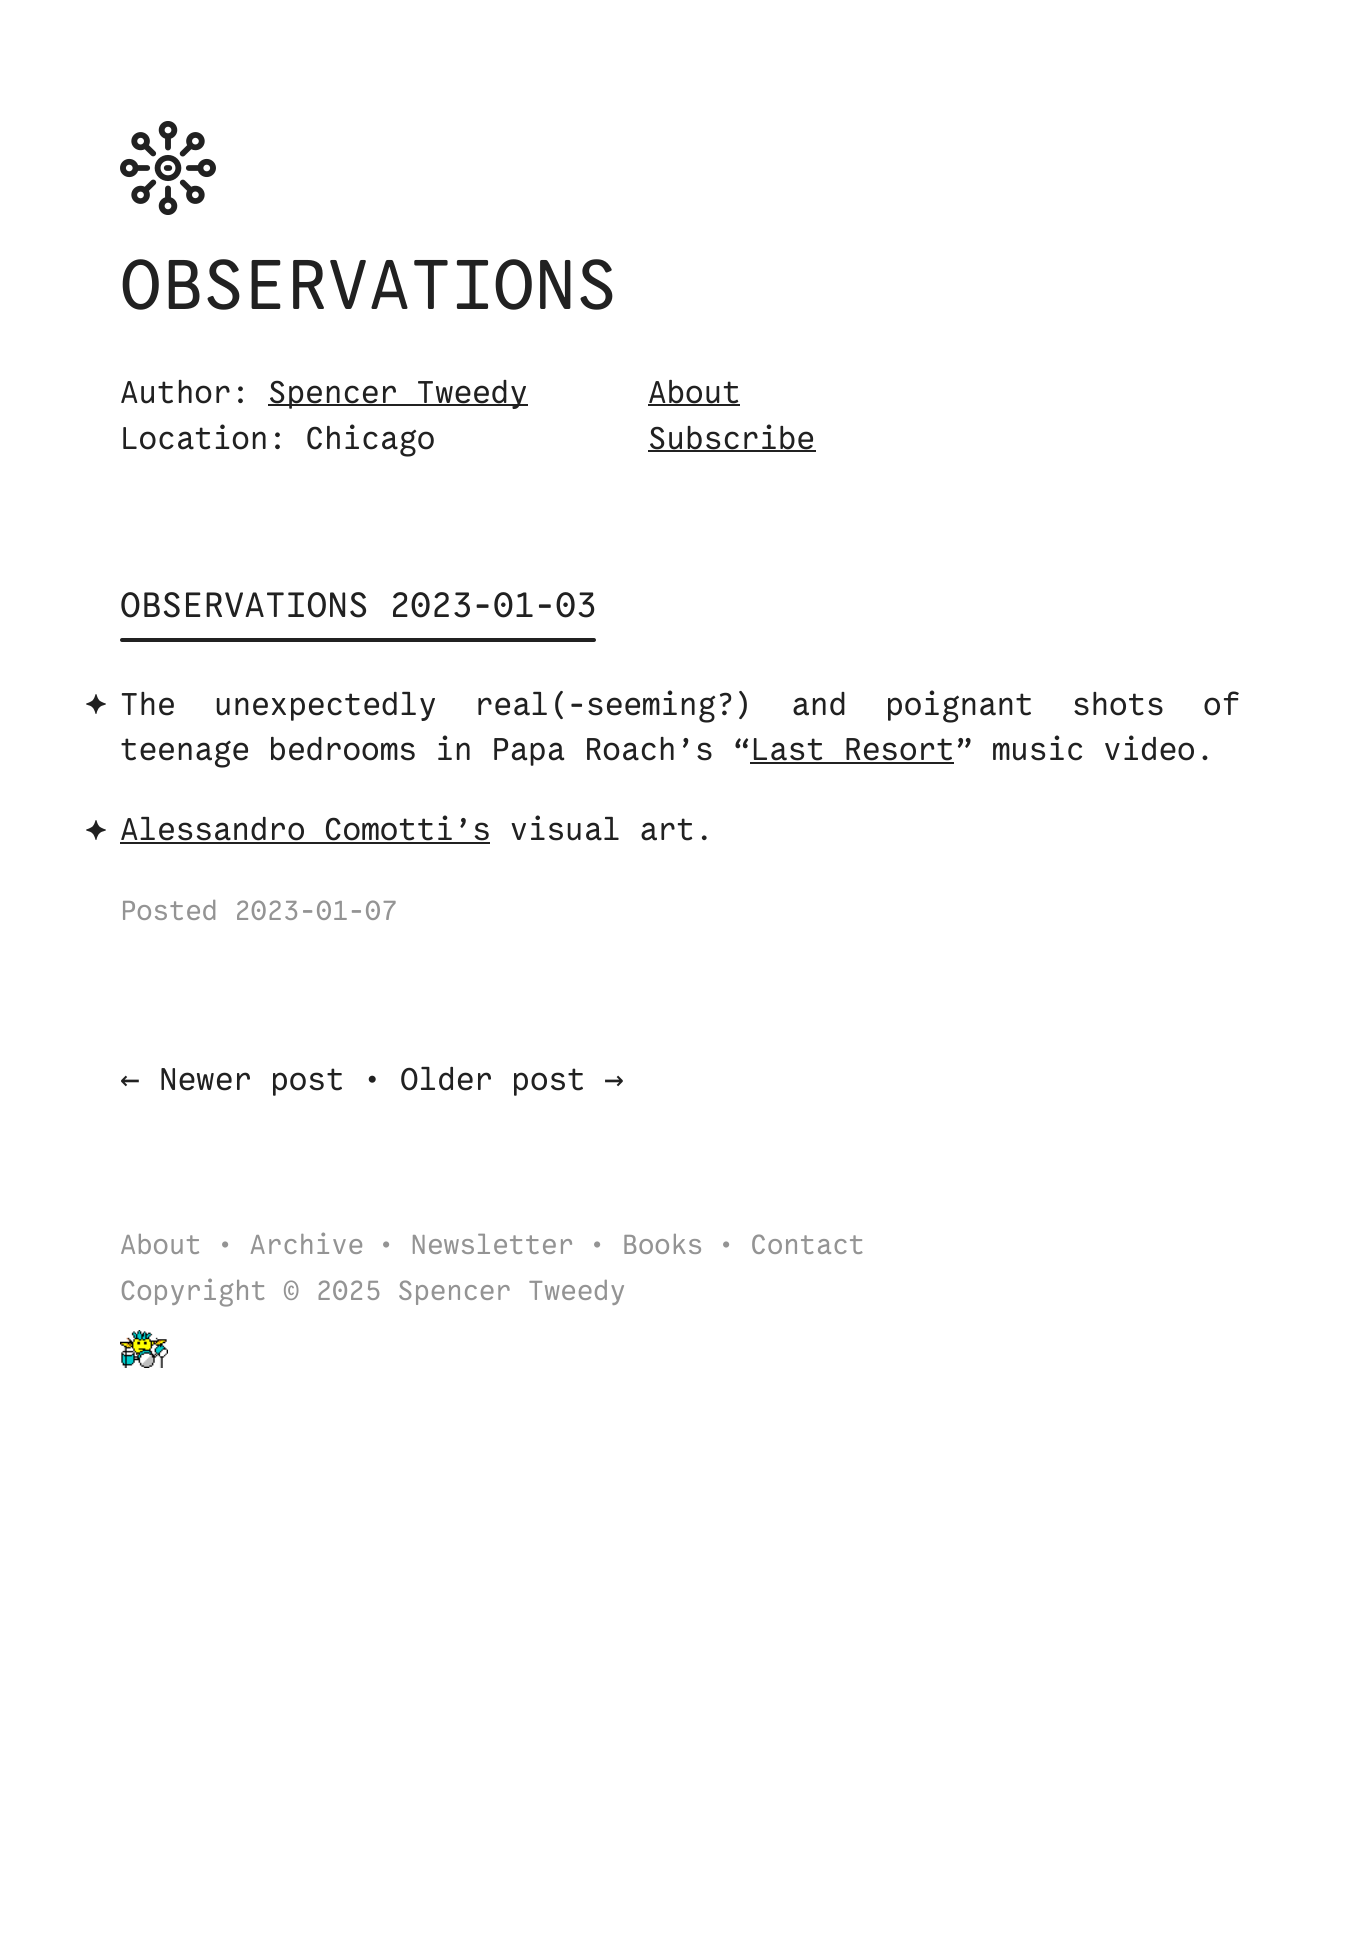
#include <cairo.h>
#include <math.h>
#include <stddef.h>

static cairo_t *ctx;

static void use_color(int r, int g, int b) {
    cairo_set_source_rgb(ctx, r / 255.0, g / 255.0, b / 255.0);
}

static void spaced_text(double x, double y, const char *s, double letter, double word) {
    cairo_move_to(ctx, x, y);
    while (*s) {
        char ch[5] = {0};
        int n = 0;
        do ch[n++] = *s++; while ((*s & 0xC0) == 0x80);
        cairo_show_text(ctx, ch);
        cairo_rel_move_to(ctx, letter + word * (*ch == ' '), 0);
    }
}

static void round_rect(double x, double y, double w, double h, double r) {
    cairo_new_sub_path(ctx);
    cairo_arc(ctx, x + w - r, y + h - r, r, 0, M_PI / 2);
    cairo_arc(ctx, x + r, y + h - r, r, M_PI / 2, M_PI);
    cairo_arc(ctx, x + r, y + r, r, M_PI, 1.5 * M_PI);
    cairo_arc(ctx, x + w - r, y + r, r, 1.5 * M_PI, 2 * M_PI);
    cairo_close_path(ctx);
}

static void picture(const char *path, double x, double y, double w, double h) {
    cairo_surface_t *image = cairo_image_surface_create_from_png(path);
    cairo_save(ctx);
    cairo_set_source_surface(ctx, image, x, y);
    cairo_rectangle(ctx, x, y, w, h);
    cairo_fill(ctx);
    cairo_restore(ctx);
    cairo_surface_destroy(image);
}

int main(void) {
    cairo_surface_t *surface = cairo_image_surface_create(CAIRO_FORMAT_RGB24, 1359, 1934);
    ctx = cairo_create(surface);
    cairo_font_options_t *options = cairo_font_options_create();
    cairo_font_options_set_hint_metrics(options, CAIRO_HINT_METRICS_OFF);
    cairo_font_options_set_hint_style(options, CAIRO_HINT_STYLE_NONE);
    cairo_set_font_options(ctx, options);
    cairo_set_miter_limit(ctx, 4);
    use_color(255, 255, 255);
    cairo_paint(ctx);
    picture("img1.png", 120, 121, 96, 94);
    cairo_select_font_face(ctx, "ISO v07", CAIRO_FONT_SLANT_NORMAL, CAIRO_FONT_WEIGHT_NORMAL);
    cairo_set_font_size(ctx, 76);
    use_color(33, 33, 33);
    cairo_move_to(ctx, 120, 309);
    cairo_show_text(ctx, "OBSERVATIONS");
    cairo_set_font_size(ctx, 34);
    cairo_move_to(ctx, 120, 403);
    cairo_show_text(ctx, "Author:");
    cairo_rectangle(ctx, 268, 404, 260, 2);
    cairo_fill(ctx);
    cairo_move_to(ctx, 268, 403);
    cairo_show_text(ctx, "Spencer Tweedy");
    cairo_move_to(ctx, 120, 449);
    cairo_show_text(ctx, "Location: Chicago");
    cairo_move_to(ctx, 648, 403);
    cairo_show_text(ctx, "About");
    cairo_rectangle(ctx, 648, 404, 92, 2);
    cairo_fill(ctx);
    cairo_move_to(ctx, 648, 449);
    cairo_show_text(ctx, "Subscribe");
    cairo_rectangle(ctx, 648, 450, 168, 2);
    cairo_fill(ctx);
    cairo_set_font_size(ctx, 38);
    cairo_move_to(ctx, 120, 617);
    cairo_show_text(ctx, "OBSERVATIONS 2023-01-03");
    round_rect(120, 638, 476, 4, 2);
    cairo_fill(ctx);
    picture("img2.png", 86, 694, 20, 20);
    cairo_set_font_size(ctx, 34);
    spaced_text(120, 715, "The unexpectedly real(-seeming?) and poignant shots of", 0, 19.75);
    cairo_move_to(ctx, 120, 760);
    cairo_show_text(ctx, "teenage bedrooms in Papa Roach’s “Last Resort” music video.");
    cairo_rectangle(ctx, 750, 762, 204, 2);
    cairo_fill(ctx);
    picture("img2.png", 86, 820, 20, 20);
    cairo_move_to(ctx, 120, 840);
    cairo_show_text(ctx, "Alessandro Comotti’s visual art.");
    cairo_rectangle(ctx, 120, 842, 370, 2);
    cairo_fill(ctx);
    cairo_set_font_size(ctx, 29.9);
    use_color(148, 148, 148);
    cairo_move_to(ctx, 120, 920);
    cairo_show_text(ctx, "Posted 2023-01-07");
    cairo_select_font_face(ctx, "DejaVu Sans Mono", CAIRO_FONT_SLANT_NORMAL, CAIRO_FONT_WEIGHT_NORMAL);
    cairo_set_font_size(ctx, 33);
    use_color(33, 33, 33);
    cairo_move_to(ctx, 120, 1090);
    cairo_show_text(ctx, "←");
    cairo_select_font_face(ctx, "ISO v07", CAIRO_FONT_SLANT_NORMAL, CAIRO_FONT_WEIGHT_NORMAL);
    cairo_set_font_size(ctx, 34);
    cairo_move_to(ctx, 159, 1090);
    cairo_show_text(ctx, "Newer post • Older post");
    cairo_select_font_face(ctx, "DejaVu Sans Mono", CAIRO_FONT_SLANT_NORMAL, CAIRO_FONT_WEIGHT_NORMAL);
    cairo_set_font_size(ctx, 33);
    cairo_move_to(ctx, 604, 1090);
    cairo_show_text(ctx, "→");
    cairo_select_font_face(ctx, "ISO v07", CAIRO_FONT_SLANT_NORMAL, CAIRO_FONT_WEIGHT_NORMAL);
    cairo_set_font_size(ctx, 29.9);
    use_color(148, 148, 148);
    cairo_move_to(ctx, 120, 1254);
    cairo_show_text(ctx, "About");
    cairo_move_to(ctx, 217, 1254);
    cairo_show_text(ctx, "• Archive");
    cairo_move_to(ctx, 378, 1254);
    cairo_show_text(ctx, "• Newsletter");
    cairo_move_to(ctx, 589, 1254);
    cairo_show_text(ctx, "• Books");
    cairo_move_to(ctx, 718, 1254);
    cairo_show_text(ctx, "• Contact");
    cairo_move_to(ctx, 120, 1300);
    cairo_show_text(ctx, "Copyright © 2025 Spencer Tweedy");
    picture("img3.png", 120, 1330, 48, 38);
    cairo_surface_write_to_png(surface, "result.png");
    cairo_font_options_destroy(options);
    cairo_destroy(ctx);
    cairo_surface_destroy(surface);
    return 0;
}
